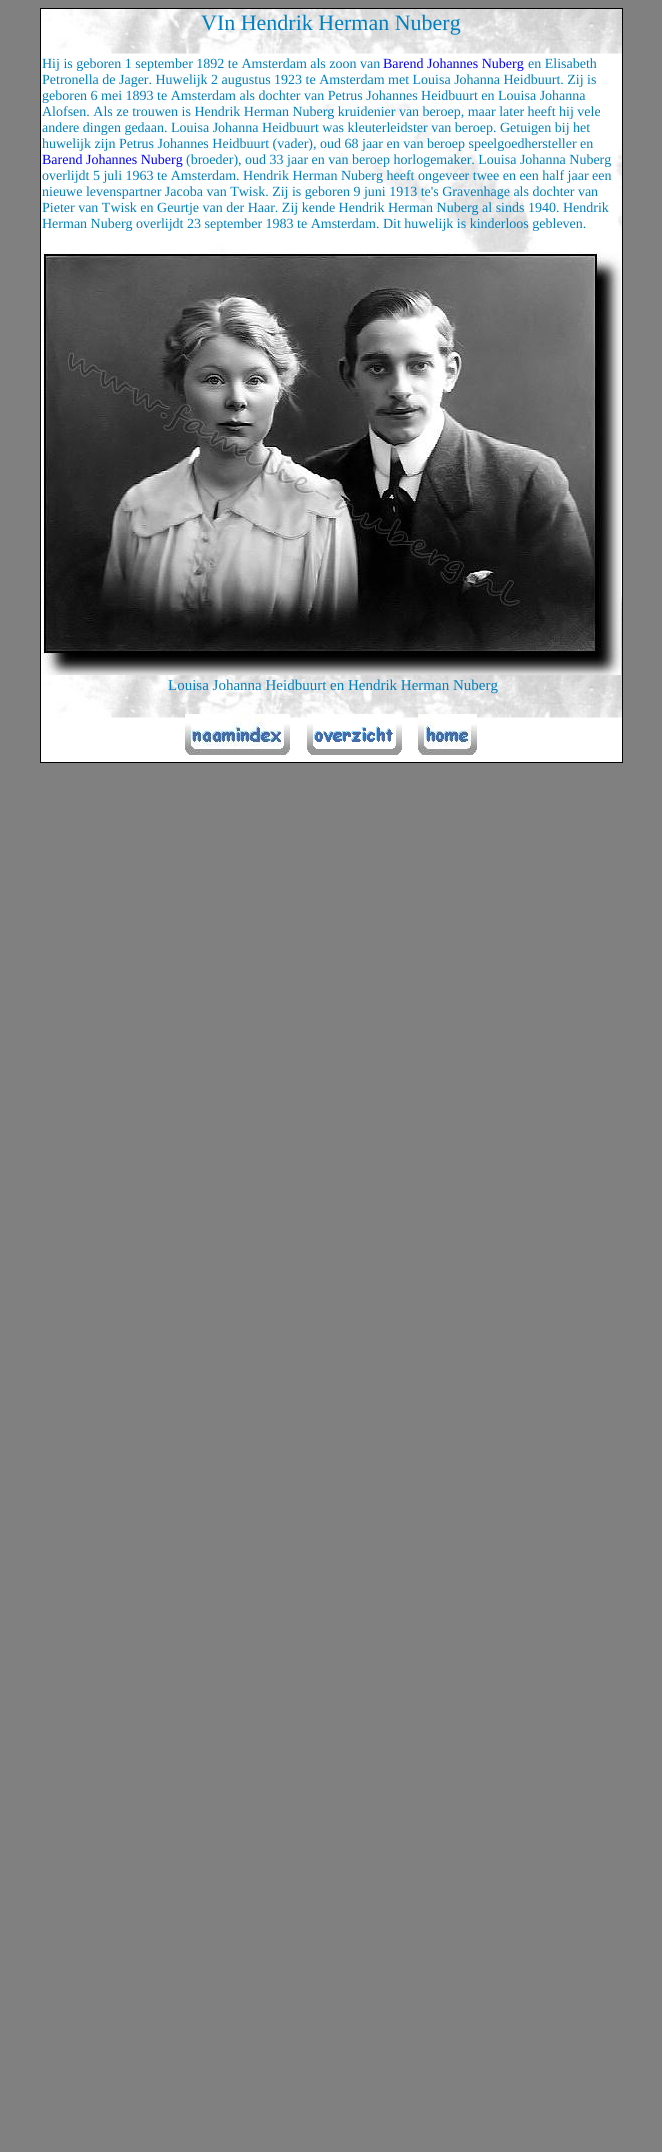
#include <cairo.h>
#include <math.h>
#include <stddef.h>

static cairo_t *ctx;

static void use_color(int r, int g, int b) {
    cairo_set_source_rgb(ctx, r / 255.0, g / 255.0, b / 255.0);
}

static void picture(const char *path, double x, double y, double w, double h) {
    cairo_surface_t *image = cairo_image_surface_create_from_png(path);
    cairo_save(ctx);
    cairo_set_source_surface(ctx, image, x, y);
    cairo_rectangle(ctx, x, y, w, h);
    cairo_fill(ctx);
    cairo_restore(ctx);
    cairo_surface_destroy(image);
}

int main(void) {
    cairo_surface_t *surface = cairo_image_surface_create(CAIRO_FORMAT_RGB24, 662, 2152);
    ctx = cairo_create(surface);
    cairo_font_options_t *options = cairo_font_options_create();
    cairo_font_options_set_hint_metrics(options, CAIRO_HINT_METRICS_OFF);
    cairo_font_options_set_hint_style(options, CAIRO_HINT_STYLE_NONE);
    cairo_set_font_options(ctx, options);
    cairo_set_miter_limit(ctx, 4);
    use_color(128, 128, 128);
    cairo_paint(ctx);
    picture("img1.png", 41, 9, 581, 753);
    use_color(0, 0, 0);
    cairo_rectangle(ctx, 40, 8, 583, 1);
    cairo_fill(ctx);
    cairo_rectangle(ctx, 622, 8, 1, 755);
    cairo_fill(ctx);
    cairo_rectangle(ctx, 40, 762, 583, 1);
    cairo_fill(ctx);
    cairo_rectangle(ctx, 40, 8, 1, 755);
    cairo_fill(ctx);
    cairo_select_font_face(ctx, "Liberation Serif", CAIRO_FONT_SLANT_NORMAL, CAIRO_FONT_WEIGHT_NORMAL);
    cairo_set_font_size(ctx, 22);
    use_color(0, 128, 192);
    cairo_move_to(ctx, 201, 30);
    cairo_show_text(ctx, "VIn Hendrik Herman Nuberg");
    cairo_set_font_size(ctx, 14);
    cairo_move_to(ctx, 42, 68);
    cairo_show_text(ctx, "Hij is geboren 1 september 1892 te Amsterdam als zoon van");
    use_color(0, 0, 255);
    cairo_move_to(ctx, 383, 68);
    cairo_show_text(ctx, "Barend Johannes Nuberg");
    use_color(0, 128, 192);
    cairo_move_to(ctx, 528, 68);
    cairo_show_text(ctx, "en Elisabeth");
    cairo_move_to(ctx, 42, 84);
    cairo_show_text(ctx, "Petronella de Jager. Huwelijk 2 augustus 1923 te Amsterdam met Louisa Johanna Heidbuurt. Zij is");
    cairo_move_to(ctx, 42, 100);
    cairo_show_text(ctx, "geboren 6 mei 1893 te Amsterdam als dochter van Petrus Johannes Heidbuurt en Louisa Johanna");
    cairo_move_to(ctx, 42, 116);
    cairo_show_text(ctx, "Alofsen. Als ze trouwen is Hendrik Herman Nuberg kruidenier van beroep, maar later heeft hij vele");
    cairo_move_to(ctx, 42, 132);
    cairo_show_text(ctx, "andere dingen gedaan. Louisa Johanna Heidbuurt was kleuterleidster van beroep. Getuigen bij het");
    cairo_move_to(ctx, 42, 148);
    cairo_show_text(ctx, "huwelijk zijn Petrus Johannes Heidbuurt (vader), oud 68 jaar en van beroep speelgoedhersteller en");
    use_color(0, 0, 255);
    cairo_move_to(ctx, 42, 164);
    cairo_show_text(ctx, "Barend Johannes Nuberg");
    use_color(0, 128, 192);
    cairo_move_to(ctx, 186, 164);
    cairo_show_text(ctx, "(broeder), oud 33 jaar en van beroep horlogemaker. Louisa Johanna Nuberg");
    cairo_move_to(ctx, 42, 180);
    cairo_show_text(ctx, "overlijdt 5 juli 1963 te Amsterdam. Hendrik Herman Nuberg heeft ongeveer twee en een half jaar een");
    cairo_move_to(ctx, 42, 196);
    cairo_show_text(ctx, "nieuwe levenspartner Jacoba van Twisk. Zij is geboren 9 juni 1913 te's Gravenhage als dochter van");
    cairo_move_to(ctx, 42, 212);
    cairo_show_text(ctx, "Pieter van Twisk en Geurtje van der Haar. Zij kende Hendrik Herman Nuberg al sinds 1940. Hendrik");
    cairo_move_to(ctx, 42, 228);
    cairo_show_text(ctx, "Herman Nuberg overlijdt 23 september 1983 te Amsterdam. Dit huwelijk is kinderloos gebleven.");
    picture("img2.png", 42, 252, 579, 423);
    cairo_set_font_size(ctx, 15);
    cairo_move_to(ctx, 168, 690);
    cairo_show_text(ctx, "Louisa Johanna Heidbuurt en Hendrik Herman Nuberg");
    picture("img3.png", 185, 714, 105, 41);
    picture("img4.png", 307, 714, 95, 41);
    picture("img5.png", 418, 714, 59, 41);
    cairo_surface_write_to_png(surface, "result.png");
    cairo_font_options_destroy(options);
    cairo_destroy(ctx);
    cairo_surface_destroy(surface);
    return 0;
}
